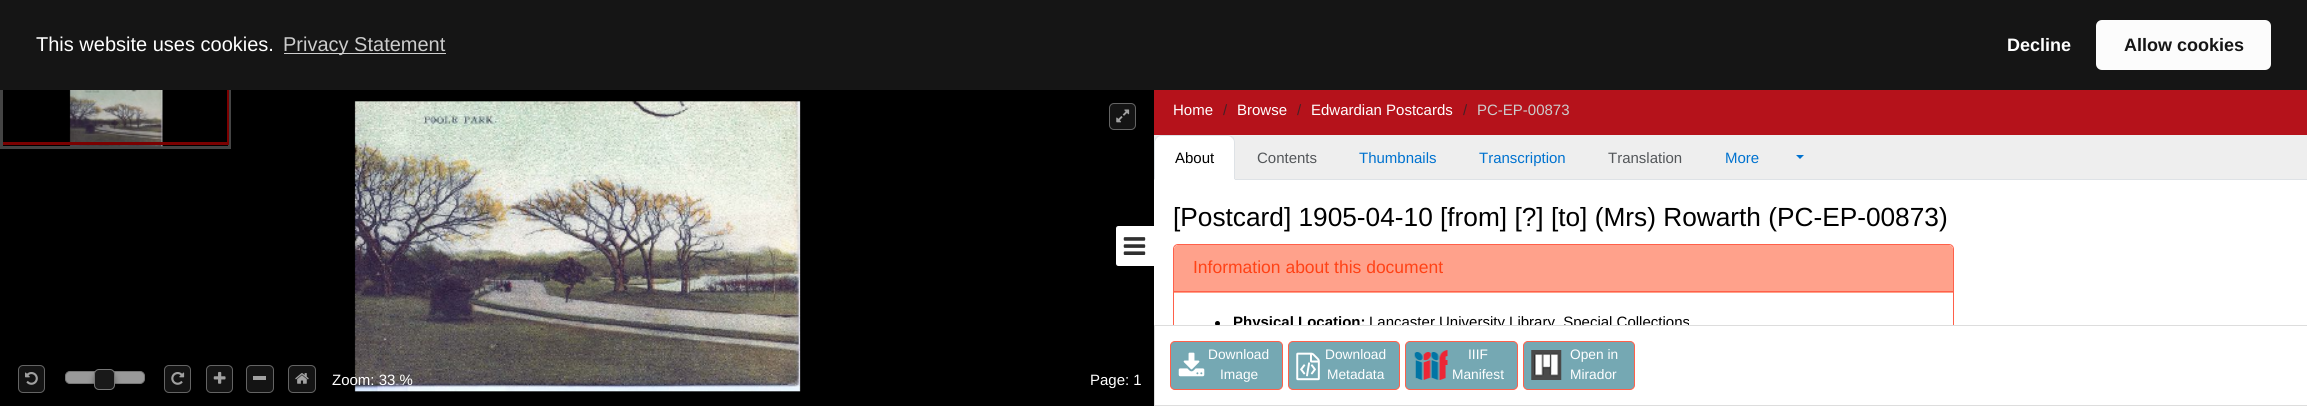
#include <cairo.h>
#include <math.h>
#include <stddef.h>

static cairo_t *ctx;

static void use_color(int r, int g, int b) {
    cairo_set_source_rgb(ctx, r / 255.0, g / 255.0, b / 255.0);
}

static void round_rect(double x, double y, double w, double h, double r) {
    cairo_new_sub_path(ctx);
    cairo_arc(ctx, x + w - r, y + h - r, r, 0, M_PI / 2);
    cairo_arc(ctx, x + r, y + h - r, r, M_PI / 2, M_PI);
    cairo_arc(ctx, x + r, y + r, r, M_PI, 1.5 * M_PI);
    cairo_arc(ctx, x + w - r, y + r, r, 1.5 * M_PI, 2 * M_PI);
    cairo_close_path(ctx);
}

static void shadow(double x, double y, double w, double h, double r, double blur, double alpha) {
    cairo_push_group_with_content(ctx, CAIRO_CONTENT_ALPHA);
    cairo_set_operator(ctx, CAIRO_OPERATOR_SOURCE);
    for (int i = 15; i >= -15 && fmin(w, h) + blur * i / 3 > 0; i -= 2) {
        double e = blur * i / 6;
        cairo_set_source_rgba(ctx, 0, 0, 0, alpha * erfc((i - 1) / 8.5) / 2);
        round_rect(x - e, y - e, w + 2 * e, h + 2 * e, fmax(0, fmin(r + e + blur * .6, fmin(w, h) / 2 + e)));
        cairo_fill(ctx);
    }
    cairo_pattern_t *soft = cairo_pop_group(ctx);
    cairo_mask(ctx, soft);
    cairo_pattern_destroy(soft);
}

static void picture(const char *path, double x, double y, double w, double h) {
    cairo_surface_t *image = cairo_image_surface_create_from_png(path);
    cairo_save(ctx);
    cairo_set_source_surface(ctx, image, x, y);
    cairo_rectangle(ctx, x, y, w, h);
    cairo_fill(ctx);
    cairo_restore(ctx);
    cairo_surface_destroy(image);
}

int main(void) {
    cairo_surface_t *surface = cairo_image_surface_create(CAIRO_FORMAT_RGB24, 2307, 406);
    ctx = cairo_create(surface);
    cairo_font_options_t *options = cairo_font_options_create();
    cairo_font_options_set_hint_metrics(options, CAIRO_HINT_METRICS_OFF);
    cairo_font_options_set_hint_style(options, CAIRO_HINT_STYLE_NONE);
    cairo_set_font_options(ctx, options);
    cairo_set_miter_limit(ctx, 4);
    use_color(0, 0, 0);
    cairo_paint(ctx);
    cairo_rectangle(ctx, 1.5, 86.5, 228, 61);
    use_color(68, 68, 68);
    cairo_set_line_width(ctx, 3);
    cairo_stroke(ctx);
    picture("img1.png", 69, 90, 94, 57);
    cairo_save(ctx);
    cairo_rectangle(ctx, 3, 88, 226, 58);
    cairo_clip(ctx);
    cairo_rectangle(ctx, 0.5, 85.5, 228, 58);
    use_color(122, 0, 0);
    cairo_stroke(ctx);
    cairo_restore(ctx);
    use_color(21, 21, 21);
    cairo_rectangle(ctx, 0, 0, 2307, 90);
    cairo_fill(ctx);
    cairo_select_font_face(ctx, "Liberation Sans", CAIRO_FONT_SLANT_NORMAL, CAIRO_FONT_WEIGHT_NORMAL);
    cairo_set_font_size(ctx, 20);
    use_color(255, 255, 255);
    cairo_move_to(ctx, 36, 51);
    cairo_show_text(ctx, "This website uses cookies.");
    use_color(206, 206, 206);
    cairo_rectangle(ctx, 284, 53, 162, 1);
    cairo_fill(ctx);
    use_color(204, 204, 204);
    cairo_move_to(ctx, 283, 51);
    cairo_show_text(ctx, "Privacy Statement");
    cairo_select_font_face(ctx, "Liberation Sans", CAIRO_FONT_SLANT_NORMAL, CAIRO_FONT_WEIGHT_BOLD);
    cairo_set_font_size(ctx, 18);
    use_color(255, 255, 255);
    cairo_move_to(ctx, 2007, 51);
    cairo_show_text(ctx, "Decline");
    use_color(252, 252, 252);
    round_rect(2096, 20, 175, 50, 6);
    cairo_fill(ctx);
    use_color(21, 21, 21);
    cairo_move_to(ctx, 2124, 51);
    cairo_show_text(ctx, "Allow cookies");
    picture("img2.png", 354, 101, 447, 291);
    use_color(20, 20, 20);
    round_rect(1109.5, 103.5, 26, 26, 4.5);
    cairo_fill_preserve(ctx);
    use_color(100, 100, 100);
    cairo_set_line_width(ctx, 1);
    cairo_stroke(ctx);
    picture("img3.png", 1116, 109, 14, 14);
    use_color(20, 20, 20);
    round_rect(18.5, 365.5, 26, 27, 4.5);
    cairo_fill_preserve(ctx);
    use_color(100, 100, 100);
    cairo_stroke(ctx);
    picture("img4.png", 25, 372, 13, 13);
    use_color(153, 153, 153);
    round_rect(65.5, 371.5, 79, 12, 4.5);
    cairo_fill_preserve(ctx);
    use_color(118, 118, 118);
    cairo_stroke(ctx);
    use_color(0, 0, 0);
    shadow(94, 374, 21, 21, 5, 3, 0.35);
    use_color(25, 25, 25);
    round_rect(94.5, 369.5, 20, 20, 4.5);
    cairo_fill_preserve(ctx);
    use_color(118, 118, 118);
    cairo_stroke(ctx);
    use_color(20, 20, 20);
    round_rect(164.5, 365.5, 26, 27, 4.5);
    cairo_fill_preserve(ctx);
    use_color(100, 100, 100);
    cairo_stroke(ctx);
    picture("img5.png", 171, 372, 14, 13);
    use_color(20, 20, 20);
    round_rect(206.5, 365.5, 26, 27, 4.5);
    cairo_fill_preserve(ctx);
    use_color(100, 100, 100);
    cairo_stroke(ctx);
    picture("img6.png", 213, 371, 13, 13);
    use_color(20, 20, 20);
    round_rect(246.5, 365.5, 27, 27, 4.5);
    cairo_fill_preserve(ctx);
    use_color(100, 100, 100);
    cairo_stroke(ctx);
    use_color(161, 161, 161);
    cairo_rectangle(ctx, 253, 376, 13, 4);
    cairo_fill(ctx);
    use_color(20, 20, 20);
    round_rect(288.5, 365.5, 27, 27, 4.5);
    cairo_fill_preserve(ctx);
    use_color(100, 100, 100);
    cairo_stroke(ctx);
    picture("img7.png", 295, 373, 14, 11);
    cairo_select_font_face(ctx, "Liberation Sans", CAIRO_FONT_SLANT_NORMAL, CAIRO_FONT_WEIGHT_NORMAL);
    cairo_set_font_size(ctx, 15);
    use_color(255, 255, 255);
    cairo_move_to(ctx, 332, 385);
    cairo_show_text(ctx, "Zoom: 33 %");
    cairo_move_to(ctx, 1090, 385);
    cairo_show_text(ctx, "Page: 1");
    use_color(238, 238, 238);
    cairo_rectangle(ctx, 1154, 135, 1153, 44);
    cairo_fill(ctx);
    use_color(181, 18, 27);
    cairo_rectangle(ctx, 1154, 90, 1153, 45);
    cairo_fill(ctx);
    use_color(255, 255, 255);
    cairo_move_to(ctx, 1173, 115);
    cairo_show_text(ctx, "Home");
    use_color(70, 32, 38);
    cairo_move_to(ctx, 1223, 115);
    cairo_show_text(ctx, "/");
    use_color(255, 255, 255);
    cairo_move_to(ctx, 1237, 115);
    cairo_show_text(ctx, "Browse");
    use_color(70, 32, 38);
    cairo_move_to(ctx, 1297, 115);
    cairo_show_text(ctx, "/");
    use_color(255, 255, 255);
    cairo_move_to(ctx, 1311, 115);
    cairo_show_text(ctx, "Edwardian Postcards");
    use_color(70, 32, 38);
    cairo_move_to(ctx, 1463, 115);
    cairo_show_text(ctx, "/");
    use_color(204, 204, 204);
    cairo_move_to(ctx, 1477, 115);
    cairo_show_text(ctx, "PC-EP-00873");
    use_color(255, 255, 255);
    cairo_new_path(ctx);
    cairo_move_to(ctx, 1118.5, 226);
    cairo_line_to(ctx, 1154, 226);
    cairo_line_to(ctx, 1154, 266);
    cairo_line_to(ctx, 1118.5, 266);
    cairo_curve_to(ctx, 1117, 266, 1116, 265, 1116, 263.5);
    cairo_line_to(ctx, 1116, 228.5);
    cairo_curve_to(ctx, 1116, 227, 1117, 226, 1118.5, 226);
    cairo_close_path(ctx);
    cairo_fill(ctx);
    picture("img8.png", 1123, 237, 23, 18);
    use_color(222, 226, 230);
    cairo_rectangle(ctx, 1235, 179, 1072, 1);
    cairo_fill(ctx);
    use_color(255, 255, 255);
    cairo_new_path(ctx);
    cairo_move_to(ctx, 1162, 135);
    cairo_line_to(ctx, 1227, 135);
    cairo_curve_to(ctx, 1231.5, 135, 1235, 138.5, 1235, 143);
    cairo_line_to(ctx, 1235, 180);
    cairo_line_to(ctx, 1154, 180);
    cairo_line_to(ctx, 1154, 143);
    cairo_curve_to(ctx, 1154, 138.5, 1157.5, 135, 1162, 135);
    cairo_close_path(ctx);
    cairo_fill(ctx);
    use_color(222, 226, 230);
    cairo_new_path(ctx);
    cairo_move_to(ctx, 1161, 135);
    cairo_curve_to(ctx, 1159, 135, 1157, 136, 1156, 137);
    cairo_line_to(ctx, 1157, 138);
    cairo_curve_to(ctx, 1158, 137, 1159, 136, 1161, 136);
    cairo_line_to(ctx, 1228, 136);
    cairo_curve_to(ctx, 1230, 136, 1231, 137, 1232, 138);
    cairo_line_to(ctx, 1233, 137);
    cairo_curve_to(ctx, 1232, 136, 1230, 135, 1228, 135);
    cairo_close_path(ctx);
    cairo_fill(ctx);
    cairo_new_path(ctx);
    cairo_move_to(ctx, 1235, 180);
    cairo_line_to(ctx, 1235, 142);
    cairo_curve_to(ctx, 1235, 140, 1234, 138, 1233, 137);
    cairo_line_to(ctx, 1232, 138);
    cairo_curve_to(ctx, 1233, 139, 1234, 140, 1234, 142);
    cairo_line_to(ctx, 1234, 179);
    cairo_close_path(ctx);
    cairo_fill(ctx);
    use_color(255, 255, 255);
    cairo_new_path(ctx);
    cairo_move_to(ctx, 1235, 180);
    cairo_line_to(ctx, 1234, 179);
    cairo_line_to(ctx, 1155, 179);
    cairo_line_to(ctx, 1154, 180);
    cairo_close_path(ctx);
    cairo_fill(ctx);
    use_color(222, 226, 230);
    cairo_new_path(ctx);
    cairo_move_to(ctx, 1156, 137);
    cairo_curve_to(ctx, 1155, 138, 1154, 140, 1154, 142);
    cairo_line_to(ctx, 1154, 180);
    cairo_line_to(ctx, 1155, 179);
    cairo_line_to(ctx, 1155, 142);
    cairo_curve_to(ctx, 1155, 141, 1156, 139, 1157, 138);
    cairo_close_path(ctx);
    cairo_fill(ctx);
    use_color(0, 0, 0);
    cairo_move_to(ctx, 1175, 163);
    cairo_show_text(ctx, "About");
    use_color(84, 87, 90);
    cairo_move_to(ctx, 1257, 163);
    cairo_show_text(ctx, "Contents");
    use_color(0, 114, 207);
    cairo_move_to(ctx, 1359, 163);
    cairo_show_text(ctx, "Thumbnails");
    cairo_move_to(ctx, 1479, 163);
    cairo_show_text(ctx, "Transcription");
    use_color(84, 87, 90);
    cairo_move_to(ctx, 1608, 163);
    cairo_show_text(ctx, "Translation");
    use_color(0, 114, 207);
    cairo_move_to(ctx, 1725, 163);
    cairo_show_text(ctx, "More");
    cairo_new_path(ctx);
    cairo_move_to(ctx, 1796, 155);
    cairo_line_to(ctx, 1804, 155);
    cairo_line_to(ctx, 1800, 159);
    cairo_close_path(ctx);
    cairo_fill(ctx);
    use_color(255, 255, 255);
    cairo_rectangle(ctx, 1154, 180, 1153, 145);
    cairo_fill(ctx);
    cairo_set_font_size(ctx, 26.25);
    use_color(0, 0, 0);
    cairo_move_to(ctx, 1173, 226);
    cairo_show_text(ctx, "[Postcard] 1905-04-10 [from] [?] [to] (Mrs) Rowarth (PC-EP-00873)");
    use_color(255, 255, 255);
    cairo_rectangle(ctx, 1154.5, 325.5, 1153, 80);
    cairo_fill_preserve(ctx);
    use_color(221, 221, 221);
    cairo_stroke(ctx);
    cairo_save(ctx);
    cairo_rectangle(ctx, 1154, 180, 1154, 145);
    cairo_clip(ctx);
    round_rect(1173.5, 244.5, 780, 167, 4.5);
    use_color(255, 96, 74);
    cairo_stroke(ctx);
    cairo_restore(ctx);
    use_color(255, 161, 139);
    cairo_new_path(ctx);
    cairo_move_to(ctx, 1178, 245);
    cairo_line_to(ctx, 1949, 245);
    cairo_curve_to(ctx, 1951, 245, 1953, 247, 1953, 249);
    cairo_line_to(ctx, 1953, 293);
    cairo_line_to(ctx, 1174, 293);
    cairo_line_to(ctx, 1174, 249);
    cairo_curve_to(ctx, 1174, 247, 1176, 245, 1178, 245);
    cairo_close_path(ctx);
    cairo_fill(ctx);
    use_color(255, 96, 74);
    cairo_rectangle(ctx, 1174, 291, 779, 1);
    cairo_fill(ctx);
    cairo_set_font_size(ctx, 17.5);
    use_color(255, 66, 22);
    cairo_move_to(ctx, 1193, 273);
    cairo_show_text(ctx, "Information about this document");
    cairo_save(ctx);
    cairo_rectangle(ctx, 1154, 180, 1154, 145);
    cairo_clip(ctx);
    use_color(0, 0, 0);
    cairo_arc(ctx, 1217.5, 323.5, 2.5, 0, 2 * M_PI);
    cairo_fill(ctx);
    cairo_select_font_face(ctx, "Liberation Sans", CAIRO_FONT_SLANT_NORMAL, CAIRO_FONT_WEIGHT_BOLD);
    cairo_set_font_size(ctx, 15);
    cairo_move_to(ctx, 1233, 327);
    cairo_show_text(ctx, "Physical Location:");
    cairo_select_font_face(ctx, "Liberation Sans", CAIRO_FONT_SLANT_NORMAL, CAIRO_FONT_WEIGHT_NORMAL);
    cairo_move_to(ctx, 1369, 327);
    cairo_show_text(ctx, "Lancaster University Library, Special Collections");
    cairo_restore(ctx);
    use_color(117, 168, 179);
    round_rect(1170.5, 341.5, 112, 48, 4.5);
    cairo_fill_preserve(ctx);
    use_color(255, 96, 74);
    cairo_stroke(ctx);
    picture("img9.png", 1178, 352, 27, 25);
    cairo_set_font_size(ctx, 13.75);
    use_color(255, 255, 255);
    cairo_move_to(ctx, 1208, 359);
    cairo_show_text(ctx, "Download");
    cairo_move_to(ctx, 1220, 379);
    cairo_show_text(ctx, "Image");
    use_color(117, 168, 179);
    round_rect(1288.5, 341.5, 111, 48, 4.5);
    cairo_fill_preserve(ctx);
    use_color(255, 96, 74);
    cairo_stroke(ctx);
    picture("img10.png", 1296, 352, 24, 29);
    use_color(255, 255, 255);
    cairo_move_to(ctx, 1325, 359);
    cairo_show_text(ctx, "Download");
    cairo_move_to(ctx, 1327, 379);
    cairo_show_text(ctx, "Metadata");
    use_color(117, 168, 179);
    round_rect(1405.5, 341.5, 112, 48, 4.5);
    cairo_fill_preserve(ctx);
    use_color(255, 96, 74);
    cairo_stroke(ctx);
    picture("img11.png", 1414, 350, 34, 30);
    use_color(255, 255, 255);
    cairo_move_to(ctx, 1468, 359);
    cairo_show_text(ctx, "IIIF");
    cairo_move_to(ctx, 1452, 379);
    cairo_show_text(ctx, "Manifest");
    use_color(117, 168, 179);
    round_rect(1523.5, 341.5, 111, 48, 4.5);
    cairo_fill_preserve(ctx);
    use_color(255, 96, 74);
    cairo_stroke(ctx);
    picture("img12.png", 1531, 350, 31, 30);
    use_color(255, 255, 255);
    cairo_move_to(ctx, 1570, 359);
    cairo_show_text(ctx, "Open in");
    cairo_move_to(ctx, 1570, 379);
    cairo_show_text(ctx, "Mirador");
    cairo_surface_write_to_png(surface, "result.png");
    cairo_font_options_destroy(options);
    cairo_destroy(ctx);
    cairo_surface_destroy(surface);
    return 0;
}
